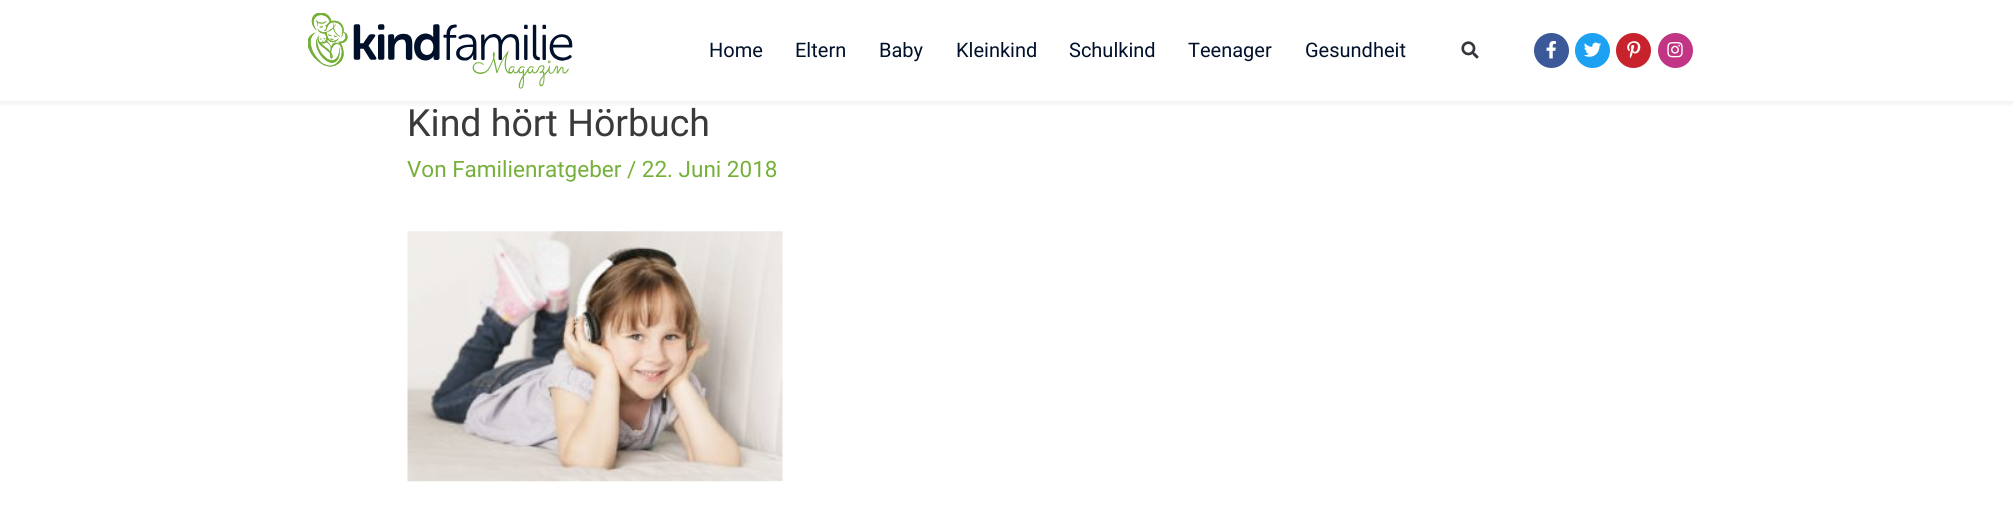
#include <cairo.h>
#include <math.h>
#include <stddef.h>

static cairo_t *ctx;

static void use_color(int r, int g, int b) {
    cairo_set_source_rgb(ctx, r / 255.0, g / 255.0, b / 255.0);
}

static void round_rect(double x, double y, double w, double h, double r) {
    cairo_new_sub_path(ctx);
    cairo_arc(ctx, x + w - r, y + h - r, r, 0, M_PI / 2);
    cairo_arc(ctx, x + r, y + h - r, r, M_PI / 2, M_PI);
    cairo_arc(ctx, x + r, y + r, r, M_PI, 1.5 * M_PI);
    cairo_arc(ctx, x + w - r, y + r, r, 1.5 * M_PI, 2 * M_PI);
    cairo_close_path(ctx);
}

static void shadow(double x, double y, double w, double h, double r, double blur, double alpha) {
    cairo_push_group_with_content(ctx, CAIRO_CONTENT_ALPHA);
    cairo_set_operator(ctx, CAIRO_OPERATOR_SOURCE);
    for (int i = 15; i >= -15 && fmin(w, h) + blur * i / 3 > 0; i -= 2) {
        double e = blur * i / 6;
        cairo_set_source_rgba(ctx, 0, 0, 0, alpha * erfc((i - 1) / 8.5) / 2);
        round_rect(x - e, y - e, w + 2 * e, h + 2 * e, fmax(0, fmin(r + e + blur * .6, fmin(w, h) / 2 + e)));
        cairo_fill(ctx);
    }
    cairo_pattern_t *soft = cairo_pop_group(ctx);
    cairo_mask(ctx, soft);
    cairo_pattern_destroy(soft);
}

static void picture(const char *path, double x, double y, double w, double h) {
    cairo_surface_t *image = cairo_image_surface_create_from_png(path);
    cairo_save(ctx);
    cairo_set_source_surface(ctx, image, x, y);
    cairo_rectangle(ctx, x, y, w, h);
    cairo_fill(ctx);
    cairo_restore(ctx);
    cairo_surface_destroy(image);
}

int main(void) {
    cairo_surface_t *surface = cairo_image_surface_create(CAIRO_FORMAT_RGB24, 2013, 519);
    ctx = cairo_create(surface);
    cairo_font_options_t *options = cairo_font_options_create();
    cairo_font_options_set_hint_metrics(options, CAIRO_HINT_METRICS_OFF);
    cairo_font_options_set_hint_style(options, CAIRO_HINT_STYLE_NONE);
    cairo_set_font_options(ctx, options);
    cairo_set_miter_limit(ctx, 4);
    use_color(255, 255, 255);
    cairo_paint(ctx);
    cairo_save(ctx);
    cairo_rectangle(ctx, 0, 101, 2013, 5);
    cairo_clip(ctx);
    use_color(0, 0, 0);
    shadow(0, 0, 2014, 101, 0, 6, 0.1);
    cairo_restore(ctx);
    picture("img1.png", 308, 13, 265, 76);
    cairo_select_font_face(ctx, "Roboto", CAIRO_FONT_SLANT_NORMAL, CAIRO_FONT_WEIGHT_NORMAL);
    cairo_set_font_size(ctx, 20);
    use_color(0, 16, 42);
    cairo_move_to(ctx, 709, 57);
    cairo_show_text(ctx, "Home");
    cairo_move_to(ctx, 795, 57);
    cairo_show_text(ctx, "Eltern");
    cairo_move_to(ctx, 879, 57);
    cairo_show_text(ctx, "Baby");
    cairo_move_to(ctx, 956, 57);
    cairo_show_text(ctx, "Kleinkind");
    cairo_move_to(ctx, 1069, 57);
    cairo_show_text(ctx, "Schulkind");
    cairo_move_to(ctx, 1188, 57);
    cairo_show_text(ctx, "Teenager");
    cairo_move_to(ctx, 1305, 57);
    cairo_show_text(ctx, "Gesundheit");
    picture("img2.png", 1461, 41, 18, 18);
    use_color(59, 89, 152);
    cairo_arc(ctx, 1551.5, 50.5, 17.5, 0, 2 * M_PI);
    cairo_fill(ctx);
    picture("img3.png", 1546, 40, 10, 19);
    use_color(29, 161, 242);
    cairo_arc(ctx, 1592.5, 50.5, 17.5, 0, 2 * M_PI);
    cairo_fill(ctx);
    picture("img4.png", 1584, 42, 18, 15);
    use_color(200, 35, 44);
    cairo_arc(ctx, 1633.5, 50.5, 17.5, 0, 2 * M_PI);
    cairo_fill(ctx);
    picture("img5.png", 1627, 41, 14, 18);
    use_color(193, 53, 132);
    cairo_arc(ctx, 1675.5, 50.5, 17.5, 0, 2 * M_PI);
    cairo_fill(ctx);
    picture("img6.png", 1667, 42, 16, 16);
    cairo_set_font_size(ctx, 37.5);
    use_color(58, 58, 58);
    cairo_move_to(ctx, 407, 136);
    cairo_show_text(ctx, "Kind hört Hörbuch");
    cairo_set_font_size(ctx, 22.5);
    use_color(118, 176, 58);
    cairo_move_to(ctx, 407, 177);
    cairo_show_text(ctx, "Von Familienratgeber / 22. Juni 2018");
    picture("img7.png", 407, 231, 376, 251);
    cairo_surface_write_to_png(surface, "result.png");
    cairo_font_options_destroy(options);
    cairo_destroy(ctx);
    cairo_surface_destroy(surface);
    return 0;
}
